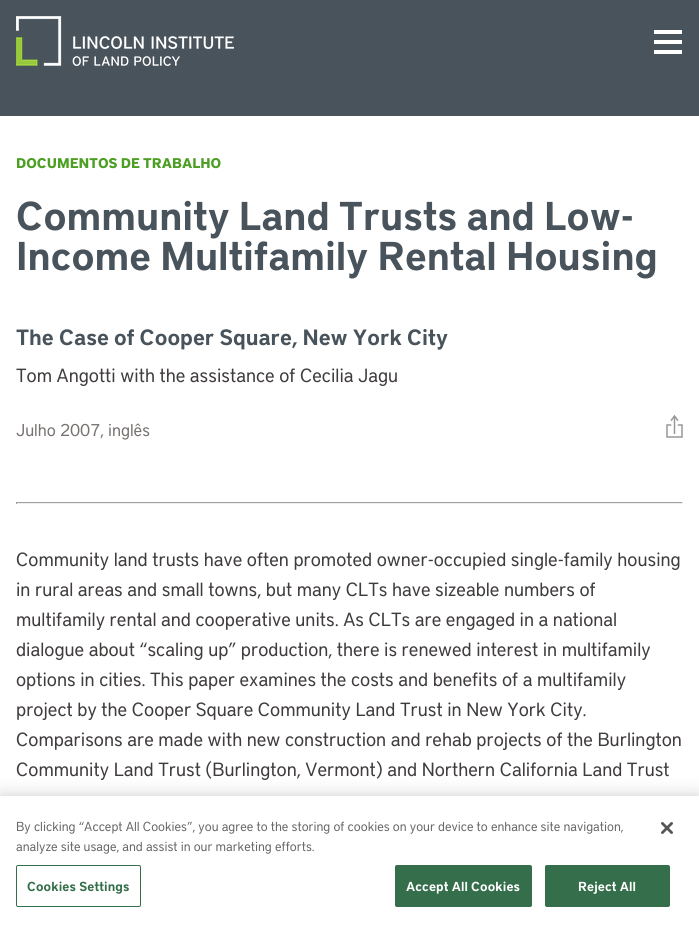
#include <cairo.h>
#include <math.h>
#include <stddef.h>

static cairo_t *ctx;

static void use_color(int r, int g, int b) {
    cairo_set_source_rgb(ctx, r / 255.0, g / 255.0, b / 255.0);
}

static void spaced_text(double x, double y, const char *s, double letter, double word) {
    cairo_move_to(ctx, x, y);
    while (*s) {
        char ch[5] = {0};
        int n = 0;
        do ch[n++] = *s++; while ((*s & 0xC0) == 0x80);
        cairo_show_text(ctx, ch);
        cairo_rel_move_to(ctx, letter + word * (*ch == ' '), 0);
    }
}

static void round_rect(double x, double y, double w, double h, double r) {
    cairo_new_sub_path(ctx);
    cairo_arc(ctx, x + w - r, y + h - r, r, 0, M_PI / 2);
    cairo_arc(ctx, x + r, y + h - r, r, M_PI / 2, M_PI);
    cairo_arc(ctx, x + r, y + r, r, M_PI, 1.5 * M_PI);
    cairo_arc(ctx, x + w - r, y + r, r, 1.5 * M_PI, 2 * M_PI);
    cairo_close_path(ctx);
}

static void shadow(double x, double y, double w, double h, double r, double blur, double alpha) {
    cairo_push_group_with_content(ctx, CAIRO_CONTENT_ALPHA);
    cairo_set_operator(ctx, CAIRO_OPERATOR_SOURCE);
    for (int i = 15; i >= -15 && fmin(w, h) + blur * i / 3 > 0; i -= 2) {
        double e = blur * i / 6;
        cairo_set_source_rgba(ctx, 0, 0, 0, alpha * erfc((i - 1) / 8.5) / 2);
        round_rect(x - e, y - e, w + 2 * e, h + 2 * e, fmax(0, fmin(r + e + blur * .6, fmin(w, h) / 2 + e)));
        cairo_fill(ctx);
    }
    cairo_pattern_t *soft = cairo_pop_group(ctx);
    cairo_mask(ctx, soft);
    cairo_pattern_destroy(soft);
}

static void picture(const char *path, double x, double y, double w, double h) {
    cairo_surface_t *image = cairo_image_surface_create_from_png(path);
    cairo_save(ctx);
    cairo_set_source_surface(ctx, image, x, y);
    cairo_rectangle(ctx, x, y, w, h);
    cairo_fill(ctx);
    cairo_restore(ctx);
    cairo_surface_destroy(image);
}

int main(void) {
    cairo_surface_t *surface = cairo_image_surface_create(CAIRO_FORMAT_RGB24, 699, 927);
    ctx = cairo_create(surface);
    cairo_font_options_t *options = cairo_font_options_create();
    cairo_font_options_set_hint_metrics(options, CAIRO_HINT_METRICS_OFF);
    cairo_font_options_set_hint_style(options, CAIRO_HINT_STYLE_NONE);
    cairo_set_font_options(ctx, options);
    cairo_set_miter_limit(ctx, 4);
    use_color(255, 255, 255);
    cairo_paint(ctx);
    use_color(72, 83, 91);
    cairo_rectangle(ctx, 0, 0, 699, 116);
    cairo_fill(ctx);
    picture("img1.png", 16, 16, 218, 50);
    use_color(255, 255, 255);
    cairo_rectangle(ctx, 654, 30, 28, 4);
    cairo_fill(ctx);
    cairo_rectangle(ctx, 654, 40, 28, 4);
    cairo_fill(ctx);
    cairo_rectangle(ctx, 654, 50, 28, 4);
    cairo_fill(ctx);
    cairo_select_font_face(ctx, "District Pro", CAIRO_FONT_SLANT_NORMAL, CAIRO_FONT_WEIGHT_BOLD);
    cairo_set_font_size(ctx, 14);
    use_color(76, 159, 34);
    cairo_move_to(ctx, 16, 168);
    cairo_show_text(ctx, "DOCUMENTOS DE TRABALHO");
    cairo_select_font_face(ctx, "District Pro SemiBold", CAIRO_FONT_SLANT_NORMAL, CAIRO_FONT_WEIGHT_NORMAL);
    cairo_set_font_size(ctx, 40);
    use_color(72, 83, 91);
    cairo_move_to(ctx, 16, 230);
    cairo_show_text(ctx, "Community Land Trusts and Low-");
    cairo_move_to(ctx, 16, 270);
    cairo_show_text(ctx, "Income Multifamily Rental Housing");
    cairo_set_font_size(ctx, 22);
    cairo_move_to(ctx, 16, 345);
    cairo_show_text(ctx, "The Case of Cooper Square, New York City");
    cairo_select_font_face(ctx, "District Pro", CAIRO_FONT_SLANT_NORMAL, CAIRO_FONT_WEIGHT_NORMAL);
    cairo_set_font_size(ctx, 19);
    use_color(64, 60, 60);
    cairo_move_to(ctx, 16, 382);
    cairo_show_text(ctx, "Tom Angotti with the assistance of Cecilia Jagu");
    cairo_set_font_size(ctx, 17);
    use_color(119, 114, 112);
    cairo_move_to(ctx, 16, 436);
    cairo_show_text(ctx, "Julho 2007, inglês");
    picture("img2.png", 666, 414, 17, 24);
    use_color(159, 159, 159);
    cairo_rectangle(ctx, 16, 502, 667, 1);
    cairo_fill(ctx);
    use_color(238, 238, 238);
    cairo_rectangle(ctx, 682, 502, 1, 2);
    cairo_fill(ctx);
    cairo_rectangle(ctx, 16, 503, 667, 1);
    cairo_fill(ctx);
    use_color(159, 159, 159);
    cairo_rectangle(ctx, 16, 502, 1, 2);
    cairo_fill(ctx);
    cairo_set_font_size(ctx, 19);
    use_color(64, 60, 60);
    cairo_move_to(ctx, 16, 566);
    cairo_show_text(ctx, "Community land trusts have often promoted owner-occupied single-family housing");
    cairo_move_to(ctx, 16, 596);
    cairo_show_text(ctx, "in rural areas and small towns, but many CLTs have sizeable numbers of");
    cairo_move_to(ctx, 16, 626);
    cairo_show_text(ctx, "multifamily rental and cooperative units. As CLTs are engaged in a national");
    cairo_move_to(ctx, 16, 656);
    cairo_show_text(ctx, "dialogue about “scaling up” production, there is renewed interest in multifamily");
    cairo_move_to(ctx, 16, 686);
    cairo_show_text(ctx, "options in cities. This paper examines the costs and benefits of a multifamily");
    cairo_move_to(ctx, 16, 716);
    cairo_show_text(ctx, "project by the Cooper Square Community Land Trust in New York City.");
    cairo_move_to(ctx, 16, 746);
    cairo_show_text(ctx, "Comparisons are made with new construction and rehab projects of the Burlington");
    cairo_move_to(ctx, 16, 776);
    cairo_show_text(ctx, "Community Land Trust (Burlington, Vermont) and Northern California Land Trust");
    use_color(0, 0, 0);
    shadow(0, 796, 699, 131, 0, 9, 0.2);
    use_color(255, 255, 255);
    cairo_rectangle(ctx, 0, 796, 699, 131);
    cairo_fill(ctx);
    cairo_set_font_size(ctx, 13);
    use_color(105, 105, 105);
    cairo_move_to(ctx, 16, 831);
    cairo_show_text(ctx, "By clicking “Accept All Cookies”, you agree to the storing of cookies on your device to enhance site navigation,");
    cairo_move_to(ctx, 16, 851);
    cairo_show_text(ctx, "analyze site usage, and assist in our marketing efforts.");
    round_rect(16.5, 865.5, 124, 41, 1.5);
    use_color(52, 110, 74);
    cairo_set_line_width(ctx, 1);
    cairo_stroke(ctx);
    cairo_select_font_face(ctx, "District Pro SemiBold", CAIRO_FONT_SLANT_NORMAL, CAIRO_FONT_WEIGHT_NORMAL);
    spaced_text(27, 891, "Cookies Settings", 0.1, 0);
    round_rect(395.5, 865.5, 136, 41, 1.5);
    cairo_fill_preserve(ctx);
    cairo_stroke(ctx);
    use_color(255, 255, 255);
    spaced_text(406, 891, "Accept All Cookies", 0.1, 0);
    use_color(52, 110, 74);
    round_rect(545.5, 865.5, 124, 41, 1.5);
    cairo_fill_preserve(ctx);
    cairo_stroke(ctx);
    use_color(255, 255, 255);
    spaced_text(578, 891, "Reject All", 0.1, 0);
    picture("img3.png", 661, 822, 12, 12);
    cairo_surface_write_to_png(surface, "result.png");
    cairo_font_options_destroy(options);
    cairo_destroy(ctx);
    cairo_surface_destroy(surface);
    return 0;
}
